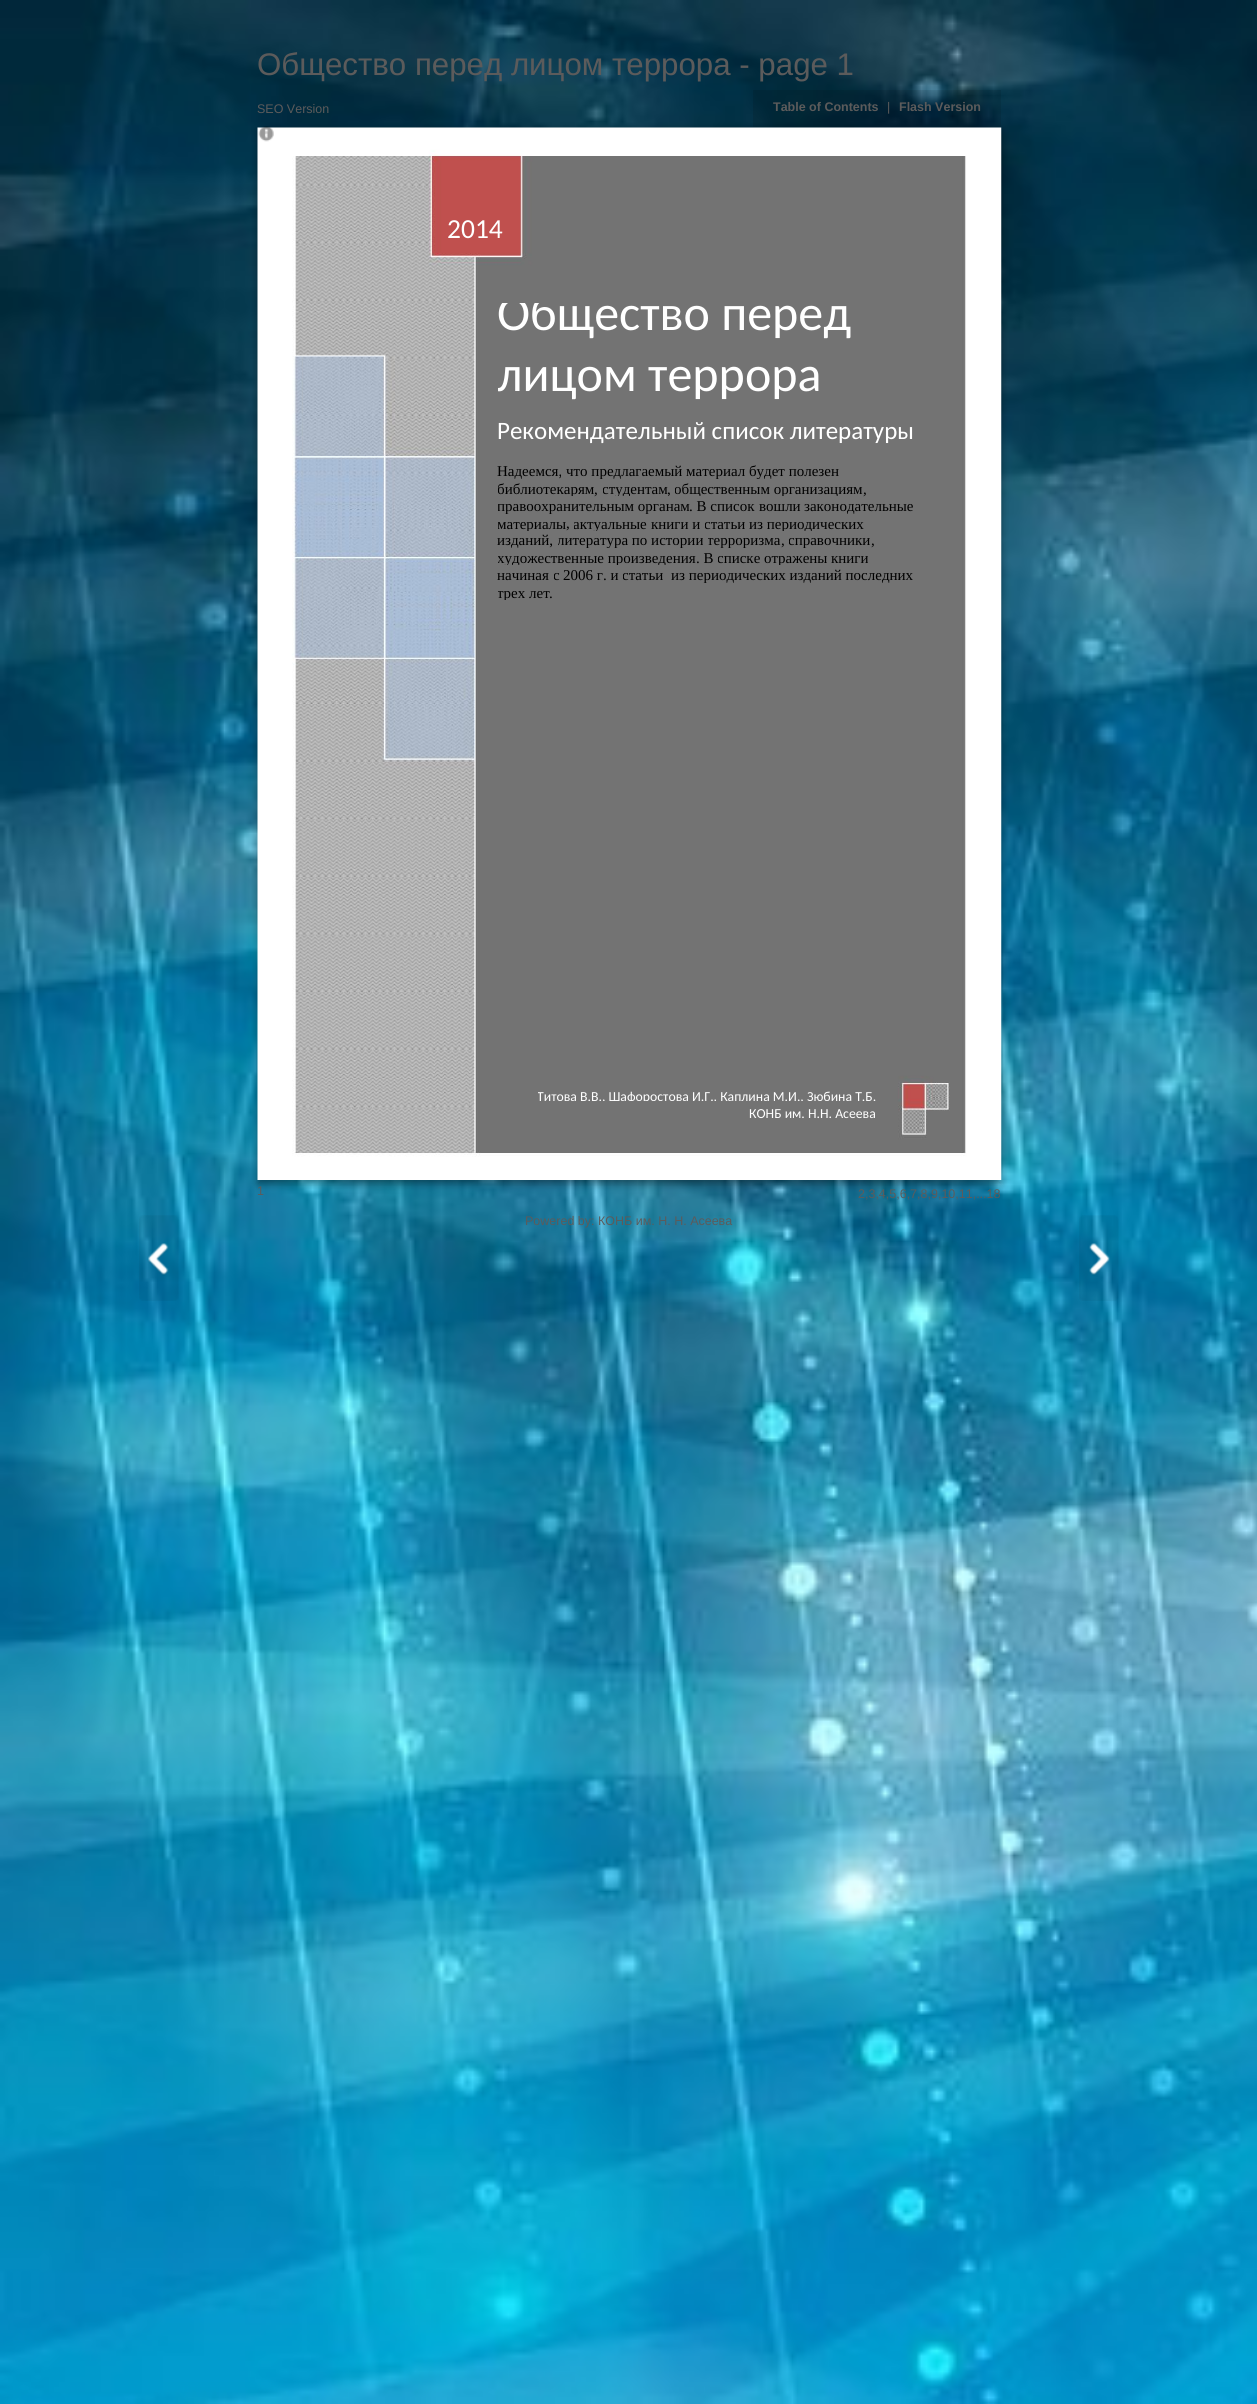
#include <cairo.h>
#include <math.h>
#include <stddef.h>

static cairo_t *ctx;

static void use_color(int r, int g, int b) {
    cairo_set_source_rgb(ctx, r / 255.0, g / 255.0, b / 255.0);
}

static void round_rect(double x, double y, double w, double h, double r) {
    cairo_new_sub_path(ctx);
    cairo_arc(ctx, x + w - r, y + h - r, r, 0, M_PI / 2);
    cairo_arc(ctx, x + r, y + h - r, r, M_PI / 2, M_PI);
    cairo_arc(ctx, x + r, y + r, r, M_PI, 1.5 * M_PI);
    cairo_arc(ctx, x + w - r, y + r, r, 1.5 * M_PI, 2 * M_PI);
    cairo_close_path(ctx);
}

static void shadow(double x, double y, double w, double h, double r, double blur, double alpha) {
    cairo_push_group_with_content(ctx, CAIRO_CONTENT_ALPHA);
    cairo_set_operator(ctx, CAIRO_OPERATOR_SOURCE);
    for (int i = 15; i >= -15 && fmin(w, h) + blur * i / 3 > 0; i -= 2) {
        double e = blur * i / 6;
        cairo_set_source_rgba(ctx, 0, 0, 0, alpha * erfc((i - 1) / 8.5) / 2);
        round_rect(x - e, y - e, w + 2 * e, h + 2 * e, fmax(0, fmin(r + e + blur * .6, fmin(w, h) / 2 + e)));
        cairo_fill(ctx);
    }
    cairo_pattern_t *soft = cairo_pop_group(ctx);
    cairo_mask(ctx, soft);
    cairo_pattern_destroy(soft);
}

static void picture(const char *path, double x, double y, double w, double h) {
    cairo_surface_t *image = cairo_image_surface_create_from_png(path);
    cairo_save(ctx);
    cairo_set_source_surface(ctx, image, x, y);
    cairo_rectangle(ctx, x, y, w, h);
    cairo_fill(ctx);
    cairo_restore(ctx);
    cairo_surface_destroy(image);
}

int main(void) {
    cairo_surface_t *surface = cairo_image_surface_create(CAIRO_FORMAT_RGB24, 1257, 2404);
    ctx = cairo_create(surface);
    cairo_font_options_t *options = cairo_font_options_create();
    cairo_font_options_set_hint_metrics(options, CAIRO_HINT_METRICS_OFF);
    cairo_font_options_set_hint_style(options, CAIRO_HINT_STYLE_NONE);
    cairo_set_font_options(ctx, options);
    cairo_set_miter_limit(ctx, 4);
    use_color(255, 255, 255);
    cairo_paint(ctx);
    picture("img1.png", 0, 0, 1257, 2404);
    cairo_select_font_face(ctx, "Liberation Sans", CAIRO_FONT_SLANT_NORMAL, CAIRO_FONT_WEIGHT_NORMAL);
    cairo_set_font_size(ctx, 31.25);
    use_color(92, 91, 91);
    cairo_move_to(ctx, 257, 75);
    cairo_show_text(ctx, "Общество перед лицом террора - page 1");
    use_color(0, 0, 0);
    shadow(258, 131, 743, 1053, 0, 4, 0.4);
    cairo_set_font_size(ctx, 12.5);
    use_color(92, 91, 91);
    cairo_move_to(ctx, 257, 113);
    cairo_show_text(ctx, "SEO Version");
    picture("img3.png", 257, 127, 745, 1053);
    picture("img2.png", 258, 126, 16, 16);
    cairo_set_source_rgba(ctx, 0, 0, 0, 0.1);
    cairo_rectangle(ctx, 753, 90, 248, 37);
    cairo_fill(ctx);
    cairo_select_font_face(ctx, "Liberation Sans", CAIRO_FONT_SLANT_NORMAL, CAIRO_FONT_WEIGHT_BOLD);
    use_color(92, 91, 91);
    cairo_move_to(ctx, 773, 111);
    cairo_show_text(ctx, "Table of Contents");
    cairo_select_font_face(ctx, "Liberation Sans", CAIRO_FONT_SLANT_NORMAL, CAIRO_FONT_WEIGHT_NORMAL);
    cairo_move_to(ctx, 887, 111);
    cairo_show_text(ctx, "|");
    cairo_select_font_face(ctx, "Liberation Sans", CAIRO_FONT_SLANT_NORMAL, CAIRO_FONT_WEIGHT_BOLD);
    cairo_move_to(ctx, 899, 111);
    cairo_show_text(ctx, "Flash Version");
    cairo_select_font_face(ctx, "Carlito", CAIRO_FONT_SLANT_NORMAL, CAIRO_FONT_WEIGHT_NORMAL);
    cairo_set_font_size(ctx, 27.5);
    use_color(255, 255, 255);
    cairo_move_to(ctx, 447, 238);
    cairo_show_text(ctx, "2014");
    cairo_save(ctx);
    cairo_rectangle(ctx, 498, 303, 353, 47);
    cairo_clip(ctx);
    cairo_set_font_size(ctx, 50);
    cairo_move_to(ctx, 497, 330);
    cairo_show_text(ctx, "Общество перед");
    cairo_restore(ctx);
    cairo_save(ctx);
    cairo_rectangle(ctx, 498, 364, 323, 47);
    cairo_clip(ctx);
    cairo_set_font_size(ctx, 50);
    cairo_move_to(ctx, 497, 391);
    cairo_show_text(ctx, "лицом террора");
    cairo_restore(ctx);
    cairo_set_font_size(ctx, 25);
    cairo_move_to(ctx, 497, 439);
    cairo_show_text(ctx, "Рекомендательный список литературы");
    cairo_select_font_face(ctx, "Liberation Serif", CAIRO_FONT_SLANT_NORMAL, CAIRO_FONT_WEIGHT_NORMAL);
    cairo_set_font_size(ctx, 15);
    use_color(0, 0, 0);
    cairo_move_to(ctx, 497, 476);
    cairo_show_text(ctx, "Надеемся,");
    cairo_save(ctx);
    cairo_rectangle(ctx, 566, 460, 273, 19);
    cairo_clip(ctx);
    cairo_move_to(ctx, 566, 476);
    cairo_show_text(ctx, "что предлагаемый материал будет полезен");
    cairo_restore(ctx);
    cairo_save(ctx);
    cairo_rectangle(ctx, 498, 478, 97, 18);
    cairo_clip(ctx);
    cairo_move_to(ctx, 497, 494);
    cairo_show_text(ctx, "библиотекарям");
    cairo_restore(ctx);
    cairo_move_to(ctx, 594, 494);
    cairo_show_text(ctx, ",");
    cairo_save(ctx);
    cairo_rectangle(ctx, 603, 478, 66, 18);
    cairo_clip(ctx);
    cairo_move_to(ctx, 602, 494);
    cairo_show_text(ctx, "студентам");
    cairo_restore(ctx);
    cairo_save(ctx);
    cairo_rectangle(ctx, 668, 478, 4, 18);
    cairo_clip(ctx);
    cairo_move_to(ctx, 667, 494);
    cairo_show_text(ctx, ",");
    cairo_restore(ctx);
    cairo_save(ctx);
    cairo_rectangle(ctx, 675, 478, 189, 18);
    cairo_clip(ctx);
    cairo_move_to(ctx, 674, 494);
    cairo_show_text(ctx, "общественным организациям");
    cairo_restore(ctx);
    cairo_move_to(ctx, 863, 494);
    cairo_show_text(ctx, ",");
    cairo_save(ctx);
    cairo_rectangle(ctx, 498, 495, 192, 19);
    cairo_clip(ctx);
    cairo_move_to(ctx, 497, 511);
    cairo_show_text(ctx, "правоохранительным органам");
    cairo_restore(ctx);
    cairo_move_to(ctx, 689, 511);
    cairo_show_text(ctx, ". В список");
    cairo_move_to(ctx, 759, 511);
    cairo_show_text(ctx, "вошли");
    cairo_move_to(ctx, 804, 511);
    cairo_show_text(ctx, "законодательные");
    cairo_save(ctx);
    cairo_rectangle(ctx, 498, 513, 68, 18);
    cairo_clip(ctx);
    cairo_move_to(ctx, 497, 529);
    cairo_show_text(ctx, "материалы");
    cairo_restore(ctx);
    cairo_move_to(ctx, 566, 528);
    cairo_show_text(ctx, ",");
    cairo_save(ctx);
    cairo_rectangle(ctx, 574, 513, 74, 18);
    cairo_clip(ctx);
    cairo_move_to(ctx, 573, 529);
    cairo_show_text(ctx, "актуальные");
    cairo_restore(ctx);
    cairo_move_to(ctx, 651, 529);
    cairo_show_text(ctx, "книги и");
    cairo_save(ctx);
    cairo_rectangle(ctx, 705, 513, 160, 18);
    cairo_clip(ctx);
    cairo_move_to(ctx, 704, 529);
    cairo_show_text(ctx, "статьи из периодических");
    cairo_restore(ctx);
    cairo_move_to(ctx, 497, 545);
    cairo_show_text(ctx, "изданий,");
    cairo_save(ctx);
    cairo_rectangle(ctx, 558, 529, 146, 19);
    cairo_clip(ctx);
    cairo_move_to(ctx, 557, 545);
    cairo_show_text(ctx, "литература по истории");
    cairo_restore(ctx);
    cairo_save(ctx);
    cairo_rectangle(ctx, 708, 529, 73, 19);
    cairo_clip(ctx);
    cairo_move_to(ctx, 707, 545);
    cairo_show_text(ctx, "терроризма");
    cairo_restore(ctx);
    cairo_move_to(ctx, 781, 545);
    cairo_show_text(ctx, ",");
    cairo_save(ctx);
    cairo_rectangle(ctx, 789, 529, 82, 19);
    cairo_clip(ctx);
    cairo_move_to(ctx, 788, 545);
    cairo_show_text(ctx, "справочники");
    cairo_restore(ctx);
    cairo_move_to(ctx, 871, 545);
    cairo_show_text(ctx, ",");
    cairo_save(ctx);
    cairo_rectangle(ctx, 498, 546, 198, 19);
    cairo_clip(ctx);
    cairo_move_to(ctx, 497, 563);
    cairo_show_text(ctx, "художественные произведения");
    cairo_restore(ctx);
    cairo_move_to(ctx, 696, 563);
    cairo_show_text(ctx, ". В");
    cairo_save(ctx);
    cairo_rectangle(ctx, 718, 546, 110, 19);
    cairo_clip(ctx);
    cairo_move_to(ctx, 717, 563);
    cairo_show_text(ctx, "списке отражены");
    cairo_restore(ctx);
    cairo_move_to(ctx, 831, 563);
    cairo_show_text(ctx, "книги");
    cairo_move_to(ctx, 497, 580);
    cairo_show_text(ctx, "начиная");
    cairo_save(ctx);
    cairo_rectangle(ctx, 554, 564, 6, 19);
    cairo_clip(ctx);
    cairo_move_to(ctx, 553, 580);
    cairo_show_text(ctx, "с");
    cairo_restore(ctx);
    cairo_move_to(ctx, 563, 580);
    cairo_show_text(ctx, "2006 г. и");
    cairo_save(ctx);
    cairo_rectangle(ctx, 623, 564, 41, 19);
    cairo_clip(ctx);
    cairo_move_to(ctx, 622, 580);
    cairo_show_text(ctx, "статьи");
    cairo_restore(ctx);
    cairo_save(ctx);
    cairo_rectangle(ctx, 671, 564, 243, 19);
    cairo_clip(ctx);
    cairo_move_to(ctx, 671, 580);
    cairo_show_text(ctx, "из периодических изданий последних");
    cairo_restore(ctx);
    cairo_save(ctx);
    cairo_rectangle(ctx, 498, 581, 28, 19);
    cairo_clip(ctx);
    cairo_move_to(ctx, 497, 598);
    cairo_show_text(ctx, "трех");
    cairo_restore(ctx);
    cairo_move_to(ctx, 529, 598);
    cairo_show_text(ctx, "лет");
    cairo_move_to(ctx, 549, 598);
    cairo_show_text(ctx, ".");
    cairo_save(ctx);
    cairo_rectangle(ctx, 538, 1086, 338, 15);
    cairo_clip(ctx);
    cairo_select_font_face(ctx, "Carlito", CAIRO_FONT_SLANT_NORMAL, CAIRO_FONT_WEIGHT_NORMAL);
    cairo_set_font_size(ctx, 13.75);
    use_color(255, 255, 255);
    cairo_move_to(ctx, 537, 1101);
    cairo_show_text(ctx, "Титова В.В., Шафоростова И.Г., Каплина М.И., Зюбина Т.Б.");
    cairo_restore(ctx);
    cairo_select_font_face(ctx, "Carlito", CAIRO_FONT_SLANT_NORMAL, CAIRO_FONT_WEIGHT_NORMAL);
    cairo_set_font_size(ctx, 13.75);
    use_color(255, 255, 255);
    cairo_move_to(ctx, 749, 1118);
    cairo_show_text(ctx, "КОНБ им. Н.Н. Асеева");
    cairo_select_font_face(ctx, "Liberation Sans", CAIRO_FONT_SLANT_NORMAL, CAIRO_FONT_WEIGHT_NORMAL);
    cairo_set_font_size(ctx, 12.5);
    use_color(92, 91, 91);
    cairo_move_to(ctx, 257, 1195);
    cairo_show_text(ctx, "1");
    cairo_move_to(ctx, 858, 1198);
    cairo_show_text(ctx, "2,3,4,5,6,7,8,9,10,11,...18");
    cairo_move_to(ctx, 525, 1225);
    cairo_show_text(ctx, "Powered by: КОНБ им. Н. Н. Асеева");
    picture("img4.png", 139, 1215, 40, 86);
    picture("img5.png", 1079, 1215, 40, 86);
    cairo_surface_write_to_png(surface, "result.png");
    cairo_font_options_destroy(options);
    cairo_destroy(ctx);
    cairo_surface_destroy(surface);
    return 0;
}
